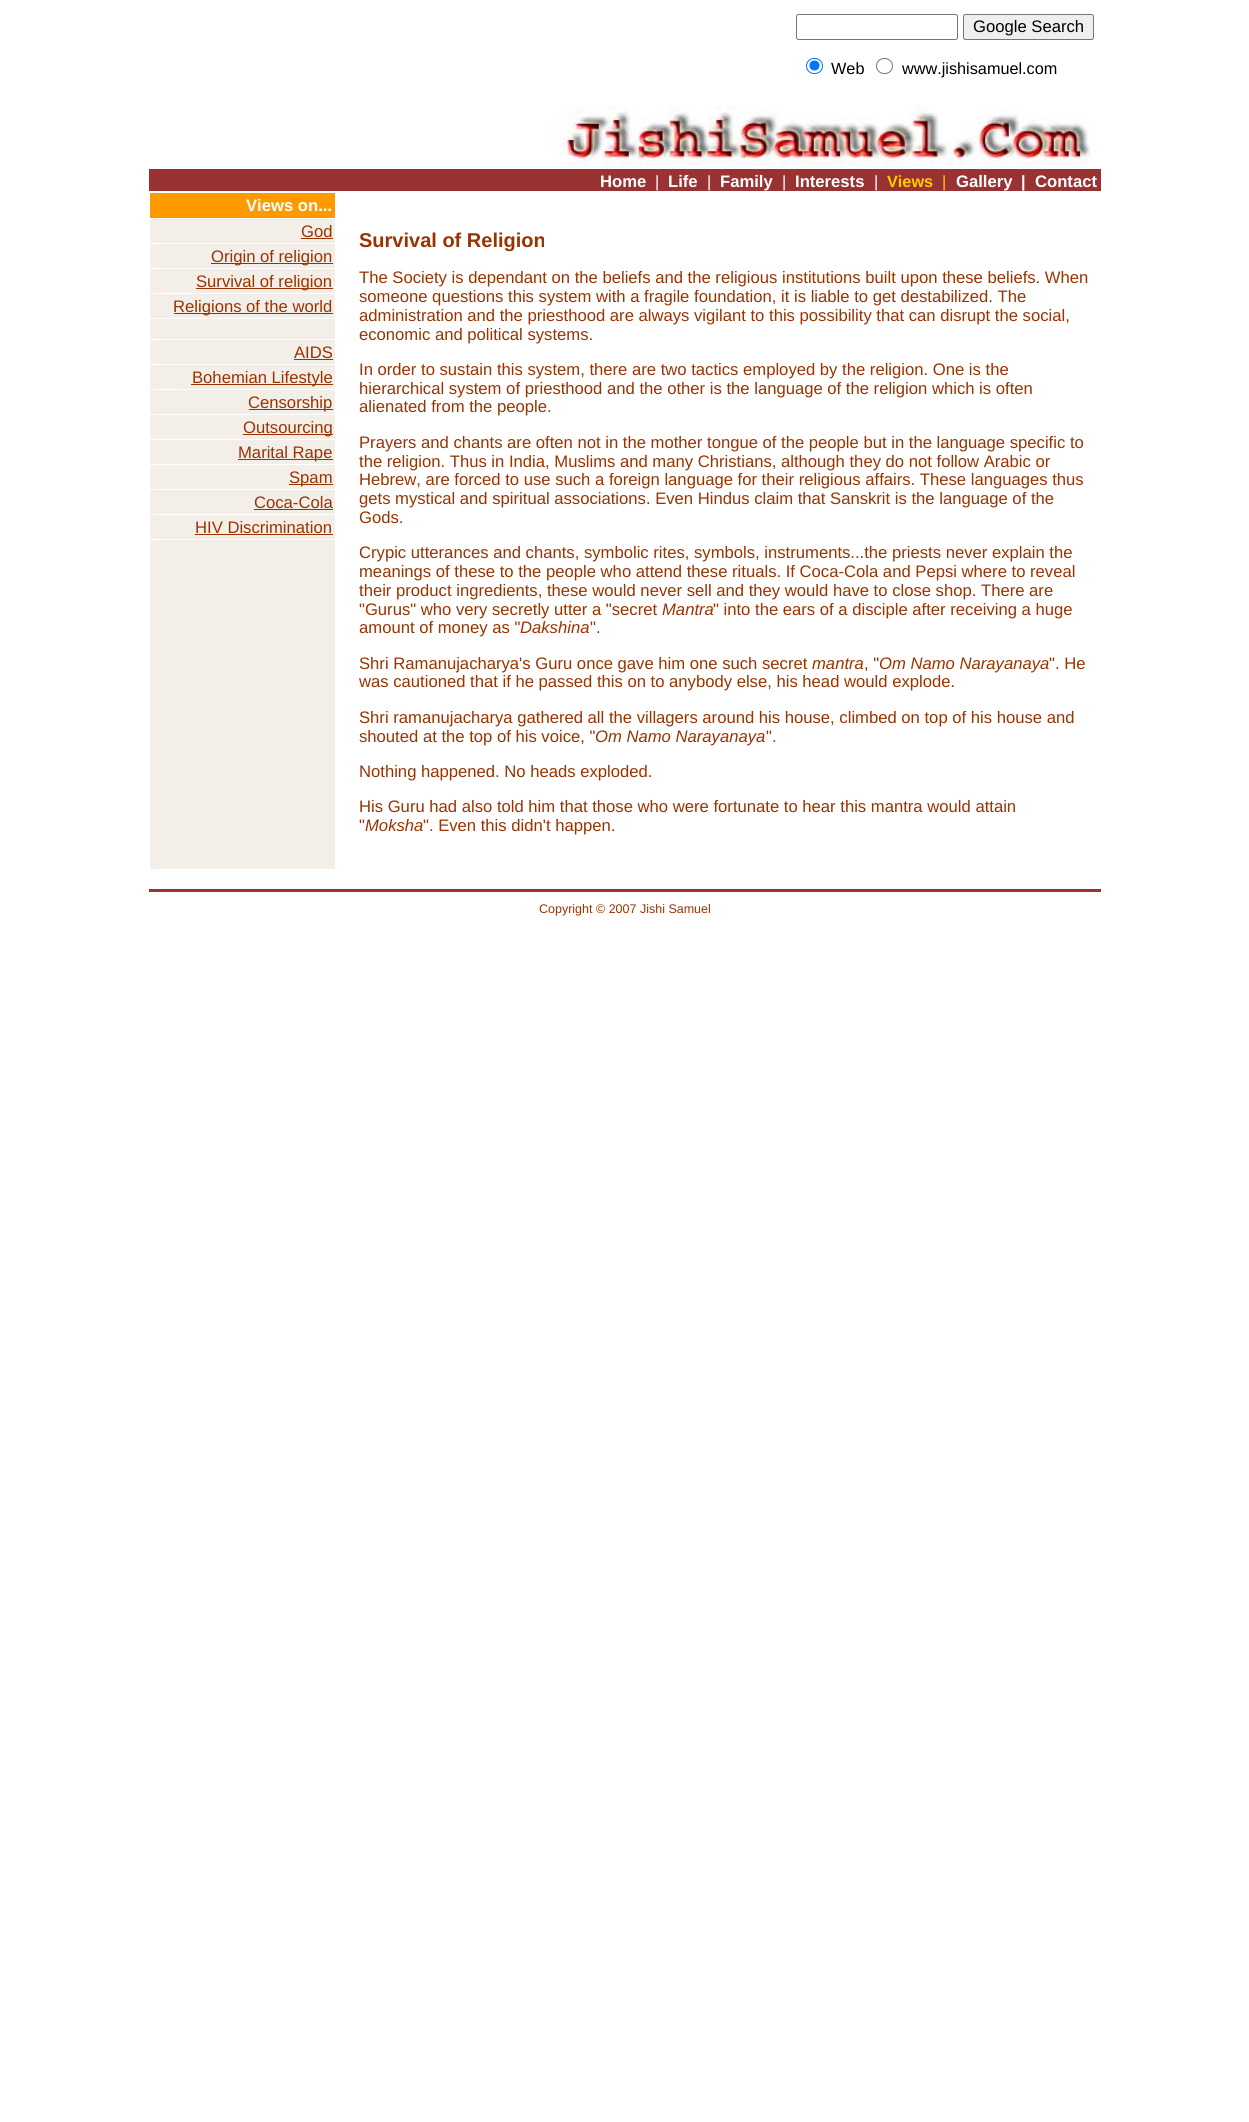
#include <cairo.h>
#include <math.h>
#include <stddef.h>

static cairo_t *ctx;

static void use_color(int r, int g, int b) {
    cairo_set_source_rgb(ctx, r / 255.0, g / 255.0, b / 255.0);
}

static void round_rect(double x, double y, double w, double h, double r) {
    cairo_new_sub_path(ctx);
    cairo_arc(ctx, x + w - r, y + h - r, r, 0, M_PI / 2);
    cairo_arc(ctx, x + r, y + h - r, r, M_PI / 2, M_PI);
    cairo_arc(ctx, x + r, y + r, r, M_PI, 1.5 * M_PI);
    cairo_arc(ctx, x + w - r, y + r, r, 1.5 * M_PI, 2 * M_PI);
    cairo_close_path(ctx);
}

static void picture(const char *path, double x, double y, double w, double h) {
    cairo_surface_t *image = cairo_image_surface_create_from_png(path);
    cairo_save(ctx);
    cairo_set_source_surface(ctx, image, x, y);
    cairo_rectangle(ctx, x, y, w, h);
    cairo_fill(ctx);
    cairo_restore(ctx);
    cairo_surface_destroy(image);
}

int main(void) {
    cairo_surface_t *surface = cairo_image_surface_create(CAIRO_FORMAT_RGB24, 1249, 2122);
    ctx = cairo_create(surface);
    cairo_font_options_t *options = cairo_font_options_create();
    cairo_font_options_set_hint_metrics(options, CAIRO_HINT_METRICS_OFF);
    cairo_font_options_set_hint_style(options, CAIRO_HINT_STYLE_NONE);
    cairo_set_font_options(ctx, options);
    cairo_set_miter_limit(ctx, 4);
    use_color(255, 255, 255);
    cairo_paint(ctx);
    round_rect(796.5, 14.5, 161, 25, 2);
    use_color(118, 118, 118);
    cairo_set_line_width(ctx, 1);
    cairo_stroke(ctx);
    use_color(239, 239, 239);
    round_rect(963.5, 14.5, 130, 25, 2);
    cairo_fill_preserve(ctx);
    use_color(118, 118, 118);
    cairo_stroke(ctx);
    cairo_select_font_face(ctx, "Liberation Sans", CAIRO_FONT_SLANT_NORMAL, CAIRO_FONT_WEIGHT_NORMAL);
    cairo_set_font_size(ctx, 16.65);
    use_color(0, 0, 0);
    cairo_move_to(ctx, 973, 32);
    cairo_show_text(ctx, "Google Search");
    round_rect(806.5, 58.5, 16, 15, 7.5);
    use_color(0, 117, 255);
    cairo_stroke(ctx);
    cairo_arc(ctx, 814.5, 65.5, 5, 0, 2 * M_PI);
    cairo_fill(ctx);
    cairo_set_font_size(ctx, 16.25);
    use_color(0, 0, 0);
    cairo_move_to(ctx, 831, 74);
    cairo_show_text(ctx, "Web");
    round_rect(876.5, 58.5, 16, 15, 7.5);
    use_color(118, 118, 118);
    cairo_stroke(ctx);
    use_color(0, 0, 0);
    cairo_move_to(ctx, 902, 74);
    cairo_show_text(ctx, "www.jishisamuel.com");
    picture("img1.png", 549, 106, 542, 61);
    use_color(153, 51, 51);
    cairo_rectangle(ctx, 149, 169, 952, 22);
    cairo_fill(ctx);
    cairo_select_font_face(ctx, "Liberation Sans", CAIRO_FONT_SLANT_NORMAL, CAIRO_FONT_WEIGHT_BOLD);
    cairo_set_font_size(ctx, 16.65);
    use_color(255, 255, 255);
    cairo_move_to(ctx, 600, 187);
    cairo_show_text(ctx, "Home");
    cairo_select_font_face(ctx, "Liberation Sans", CAIRO_FONT_SLANT_NORMAL, CAIRO_FONT_WEIGHT_NORMAL);
    cairo_set_font_size(ctx, 16.25);
    cairo_move_to(ctx, 655, 187);
    cairo_show_text(ctx, "|");
    cairo_select_font_face(ctx, "Liberation Sans", CAIRO_FONT_SLANT_NORMAL, CAIRO_FONT_WEIGHT_BOLD);
    cairo_set_font_size(ctx, 16.65);
    cairo_move_to(ctx, 668, 187);
    cairo_show_text(ctx, "Life");
    cairo_select_font_face(ctx, "Liberation Sans", CAIRO_FONT_SLANT_NORMAL, CAIRO_FONT_WEIGHT_NORMAL);
    cairo_set_font_size(ctx, 16.25);
    cairo_move_to(ctx, 707, 187);
    cairo_show_text(ctx, "|");
    cairo_select_font_face(ctx, "Liberation Sans", CAIRO_FONT_SLANT_NORMAL, CAIRO_FONT_WEIGHT_BOLD);
    cairo_set_font_size(ctx, 16.65);
    cairo_move_to(ctx, 720, 187);
    cairo_show_text(ctx, "Family");
    cairo_select_font_face(ctx, "Liberation Sans", CAIRO_FONT_SLANT_NORMAL, CAIRO_FONT_WEIGHT_NORMAL);
    cairo_set_font_size(ctx, 16.25);
    cairo_move_to(ctx, 782, 187);
    cairo_show_text(ctx, "|");
    cairo_select_font_face(ctx, "Liberation Sans", CAIRO_FONT_SLANT_NORMAL, CAIRO_FONT_WEIGHT_BOLD);
    cairo_set_font_size(ctx, 16.65);
    cairo_move_to(ctx, 795, 187);
    cairo_show_text(ctx, "Interests");
    cairo_select_font_face(ctx, "Liberation Sans", CAIRO_FONT_SLANT_NORMAL, CAIRO_FONT_WEIGHT_NORMAL);
    cairo_set_font_size(ctx, 16.25);
    cairo_move_to(ctx, 874, 187);
    cairo_show_text(ctx, "|");
    cairo_select_font_face(ctx, "Liberation Sans", CAIRO_FONT_SLANT_NORMAL, CAIRO_FONT_WEIGHT_BOLD);
    use_color(255, 204, 0);
    cairo_move_to(ctx, 887, 187);
    cairo_show_text(ctx, "Views");
    cairo_select_font_face(ctx, "Liberation Sans", CAIRO_FONT_SLANT_NORMAL, CAIRO_FONT_WEIGHT_NORMAL);
    cairo_move_to(ctx, 942, 187);
    cairo_show_text(ctx, "|");
    cairo_select_font_face(ctx, "Liberation Sans", CAIRO_FONT_SLANT_NORMAL, CAIRO_FONT_WEIGHT_BOLD);
    cairo_set_font_size(ctx, 16.65);
    use_color(255, 255, 255);
    cairo_move_to(ctx, 956, 187);
    cairo_show_text(ctx, "Gallery");
    cairo_set_font_size(ctx, 16.25);
    cairo_move_to(ctx, 1021, 187);
    cairo_show_text(ctx, "|");
    cairo_set_font_size(ctx, 16.65);
    cairo_move_to(ctx, 1035, 187);
    cairo_show_text(ctx, "Contact");
    use_color(255, 153, 0);
    cairo_rectangle(ctx, 150, 193, 185, 25);
    cairo_fill(ctx);
    use_color(255, 255, 255);
    cairo_move_to(ctx, 246, 211);
    cairo_show_text(ctx, "Views on...");
    use_color(244, 238, 232);
    cairo_rectangle(ctx, 150, 219, 185, 24);
    cairo_fill(ctx);
    cairo_select_font_face(ctx, "Liberation Sans", CAIRO_FONT_SLANT_NORMAL, CAIRO_FONT_WEIGHT_NORMAL);
    use_color(153, 51, 0);
    cairo_move_to(ctx, 301, 237);
    cairo_show_text(ctx, "God");
    cairo_rectangle(ctx, 301, 238, 32, 1);
    cairo_fill(ctx);
    use_color(244, 238, 232);
    cairo_rectangle(ctx, 150, 244, 185, 24);
    cairo_fill(ctx);
    use_color(153, 51, 0);
    cairo_rectangle(ctx, 211, 263, 122, 1);
    cairo_fill(ctx);
    cairo_move_to(ctx, 211, 262);
    cairo_show_text(ctx, "Origin of religion");
    use_color(244, 238, 232);
    cairo_rectangle(ctx, 150, 269, 185, 24);
    cairo_fill(ctx);
    use_color(153, 51, 0);
    cairo_rectangle(ctx, 196, 288, 137, 1);
    cairo_fill(ctx);
    cairo_move_to(ctx, 196, 287);
    cairo_show_text(ctx, "Survival of religion");
    use_color(244, 238, 232);
    cairo_rectangle(ctx, 150, 294, 185, 24);
    cairo_fill(ctx);
    use_color(153, 51, 0);
    cairo_rectangle(ctx, 174, 313, 159, 1);
    cairo_fill(ctx);
    cairo_move_to(ctx, 173, 312);
    cairo_show_text(ctx, "Religions of the world");
    use_color(244, 238, 232);
    cairo_rectangle(ctx, 150, 319, 185, 20);
    cairo_fill(ctx);
    cairo_rectangle(ctx, 150, 340, 185, 24);
    cairo_fill(ctx);
    use_color(153, 51, 0);
    cairo_move_to(ctx, 294, 358);
    cairo_show_text(ctx, "AIDS");
    cairo_rectangle(ctx, 294, 359, 39, 1);
    cairo_fill(ctx);
    use_color(244, 238, 232);
    cairo_rectangle(ctx, 150, 365, 185, 24);
    cairo_fill(ctx);
    use_color(153, 51, 0);
    cairo_rectangle(ctx, 191, 384, 142, 1);
    cairo_fill(ctx);
    cairo_move_to(ctx, 192, 383);
    cairo_show_text(ctx, "Bohemian Lifestyle");
    use_color(244, 238, 232);
    cairo_rectangle(ctx, 150, 390, 185, 24);
    cairo_fill(ctx);
    use_color(153, 51, 0);
    cairo_rectangle(ctx, 249, 409, 84, 1);
    cairo_fill(ctx);
    cairo_move_to(ctx, 248, 408);
    cairo_show_text(ctx, "Censorship");
    use_color(244, 238, 232);
    cairo_rectangle(ctx, 150, 415, 185, 24);
    cairo_fill(ctx);
    use_color(153, 51, 0);
    cairo_rectangle(ctx, 243, 434, 90, 1);
    cairo_fill(ctx);
    cairo_move_to(ctx, 243, 433);
    cairo_show_text(ctx, "Outsourcing");
    use_color(244, 238, 232);
    cairo_rectangle(ctx, 150, 440, 185, 24);
    cairo_fill(ctx);
    use_color(153, 51, 0);
    cairo_rectangle(ctx, 238, 459, 95, 1);
    cairo_fill(ctx);
    cairo_move_to(ctx, 238, 458);
    cairo_show_text(ctx, "Marital Rape");
    use_color(244, 238, 232);
    cairo_rectangle(ctx, 150, 465, 185, 24);
    cairo_fill(ctx);
    use_color(153, 51, 0);
    cairo_rectangle(ctx, 289, 484, 44, 1);
    cairo_fill(ctx);
    cairo_move_to(ctx, 289, 483);
    cairo_show_text(ctx, "Spam");
    use_color(244, 238, 232);
    cairo_rectangle(ctx, 150, 490, 185, 24);
    cairo_fill(ctx);
    use_color(153, 51, 0);
    cairo_move_to(ctx, 254, 508);
    cairo_show_text(ctx, "Coca-Cola");
    cairo_rectangle(ctx, 254, 509, 79, 1);
    cairo_fill(ctx);
    use_color(244, 238, 232);
    cairo_rectangle(ctx, 150, 515, 185, 24);
    cairo_fill(ctx);
    use_color(153, 51, 0);
    cairo_move_to(ctx, 195, 533);
    cairo_show_text(ctx, "HIV Discrimination");
    cairo_rectangle(ctx, 195, 534, 138, 1);
    cairo_fill(ctx);
    use_color(244, 238, 232);
    cairo_rectangle(ctx, 150, 540, 185, 329);
    cairo_fill(ctx);
    cairo_select_font_face(ctx, "Liberation Sans", CAIRO_FONT_SLANT_NORMAL, CAIRO_FONT_WEIGHT_BOLD);
    cairo_set_font_size(ctx, 20);
    use_color(153, 51, 0);
    cairo_move_to(ctx, 359, 247);
    cairo_show_text(ctx, "Survival of Religion");
    cairo_select_font_face(ctx, "Liberation Sans", CAIRO_FONT_SLANT_NORMAL, CAIRO_FONT_WEIGHT_NORMAL);
    cairo_set_font_size(ctx, 16.65);
    cairo_move_to(ctx, 359, 283);
    cairo_show_text(ctx, "The Society is dependant on the beliefs and the religious institutions built upon these beliefs. When");
    cairo_move_to(ctx, 359, 302);
    cairo_show_text(ctx, "someone questions this system with a fragile foundation, it is liable to get destabilized. The");
    cairo_move_to(ctx, 359, 321);
    cairo_show_text(ctx, "administration and the priesthood are always vigilant to this possibility that can disrupt the social,");
    cairo_move_to(ctx, 359, 340);
    cairo_show_text(ctx, "economic and political systems.");
    cairo_move_to(ctx, 359, 375);
    cairo_show_text(ctx, "In order to sustain this system, there are two tactics employed by the religion. One is the");
    cairo_move_to(ctx, 359, 394);
    cairo_show_text(ctx, "hierarchical system of priesthood and the other is the language of the religion which is often");
    cairo_move_to(ctx, 359, 412);
    cairo_show_text(ctx, "alienated from the people.");
    cairo_move_to(ctx, 359, 448);
    cairo_show_text(ctx, "Prayers and chants are often not in the mother tongue of the people but in the language specific to");
    cairo_move_to(ctx, 359, 467);
    cairo_show_text(ctx, "the religion. Thus in India, Muslims and many Christians, although they do not follow Arabic or");
    cairo_move_to(ctx, 359, 485);
    cairo_show_text(ctx, "Hebrew, are forced to use such a foreign language for their religious affairs. These languages thus");
    cairo_move_to(ctx, 359, 504);
    cairo_show_text(ctx, "gets mystical and spiritual associations. Even Hindus claim that Sanskrit is the language of the");
    cairo_move_to(ctx, 359, 523);
    cairo_show_text(ctx, "Gods.");
    cairo_move_to(ctx, 359, 558);
    cairo_show_text(ctx, "Crypic utterances and chants, symbolic rites, symbols, instruments...the priests never explain the");
    cairo_move_to(ctx, 359, 577);
    cairo_show_text(ctx, "meanings of these to the people who attend these rituals. If Coca-Cola and Pepsi where to reveal");
    cairo_move_to(ctx, 359, 596);
    cairo_show_text(ctx, "their product ingredients, these would never sell and they would have to close shop. There are");
    cairo_move_to(ctx, 359, 615);
    cairo_show_text(ctx, "\"Gurus\" who very secretly utter a \"secret");
    cairo_select_font_face(ctx, "Liberation Sans", CAIRO_FONT_SLANT_ITALIC, CAIRO_FONT_WEIGHT_NORMAL);
    cairo_move_to(ctx, 662, 615);
    cairo_show_text(ctx, "Mantra");
    cairo_select_font_face(ctx, "Liberation Sans", CAIRO_FONT_SLANT_NORMAL, CAIRO_FONT_WEIGHT_NORMAL);
    cairo_move_to(ctx, 713, 615);
    cairo_show_text(ctx, "\" into the ears of a disciple after receiving a huge");
    cairo_move_to(ctx, 359, 633);
    cairo_show_text(ctx, "amount of money as \"");
    cairo_select_font_face(ctx, "Liberation Sans", CAIRO_FONT_SLANT_ITALIC, CAIRO_FONT_WEIGHT_NORMAL);
    cairo_move_to(ctx, 520, 633);
    cairo_show_text(ctx, "Dakshina");
    cairo_select_font_face(ctx, "Liberation Sans", CAIRO_FONT_SLANT_NORMAL, CAIRO_FONT_WEIGHT_NORMAL);
    cairo_move_to(ctx, 590, 633);
    cairo_show_text(ctx, "\".");
    cairo_move_to(ctx, 359, 669);
    cairo_show_text(ctx, "Shri Ramanujacharya's Guru once gave him one such secret");
    cairo_select_font_face(ctx, "Liberation Sans", CAIRO_FONT_SLANT_ITALIC, CAIRO_FONT_WEIGHT_NORMAL);
    cairo_move_to(ctx, 812, 669);
    cairo_show_text(ctx, "mantra");
    cairo_select_font_face(ctx, "Liberation Sans", CAIRO_FONT_SLANT_NORMAL, CAIRO_FONT_WEIGHT_NORMAL);
    cairo_move_to(ctx, 864, 669);
    cairo_show_text(ctx, ", \"");
    cairo_select_font_face(ctx, "Liberation Sans", CAIRO_FONT_SLANT_ITALIC, CAIRO_FONT_WEIGHT_NORMAL);
    cairo_move_to(ctx, 879, 669);
    cairo_show_text(ctx, "Om Namo Narayanaya");
    cairo_select_font_face(ctx, "Liberation Sans", CAIRO_FONT_SLANT_NORMAL, CAIRO_FONT_WEIGHT_NORMAL);
    cairo_move_to(ctx, 1049, 669);
    cairo_show_text(ctx, "\". He");
    cairo_move_to(ctx, 359, 687);
    cairo_show_text(ctx, "was cautioned that if he passed this on to anybody else, his head would explode.");
    cairo_move_to(ctx, 359, 723);
    cairo_show_text(ctx, "Shri ramanujacharya gathered all the villagers around his house, climbed on top of his house and");
    cairo_move_to(ctx, 359, 742);
    cairo_show_text(ctx, "shouted at the top of his voice, \"");
    cairo_select_font_face(ctx, "Liberation Sans", CAIRO_FONT_SLANT_ITALIC, CAIRO_FONT_WEIGHT_NORMAL);
    cairo_move_to(ctx, 595, 742);
    cairo_show_text(ctx, "Om Namo Narayanaya");
    cairo_select_font_face(ctx, "Liberation Sans", CAIRO_FONT_SLANT_NORMAL, CAIRO_FONT_WEIGHT_NORMAL);
    cairo_move_to(ctx, 766, 742);
    cairo_show_text(ctx, "\".");
    cairo_move_to(ctx, 359, 777);
    cairo_show_text(ctx, "Nothing happened. No heads exploded.");
    cairo_move_to(ctx, 359, 812);
    cairo_show_text(ctx, "His Guru had also told him that those who were fortunate to hear this mantra would attain");
    cairo_move_to(ctx, 359, 831);
    cairo_show_text(ctx, "\"");
    cairo_select_font_face(ctx, "Liberation Sans", CAIRO_FONT_SLANT_ITALIC, CAIRO_FONT_WEIGHT_NORMAL);
    cairo_move_to(ctx, 365, 831);
    cairo_show_text(ctx, "Moksha");
    cairo_select_font_face(ctx, "Liberation Sans", CAIRO_FONT_SLANT_NORMAL, CAIRO_FONT_WEIGHT_NORMAL);
    cairo_move_to(ctx, 423, 831);
    cairo_show_text(ctx, "\". Even this didn't happen.");
    use_color(153, 51, 51);
    cairo_rectangle(ctx, 149, 889, 952, 3);
    cairo_fill(ctx);
    cairo_set_font_size(ctx, 12.5);
    use_color(153, 51, 0);
    cairo_move_to(ctx, 539, 913);
    cairo_show_text(ctx, "Copyright © 2007 Jishi Samuel");
    cairo_surface_write_to_png(surface, "result.png");
    cairo_font_options_destroy(options);
    cairo_destroy(ctx);
    cairo_surface_destroy(surface);
    return 0;
}
